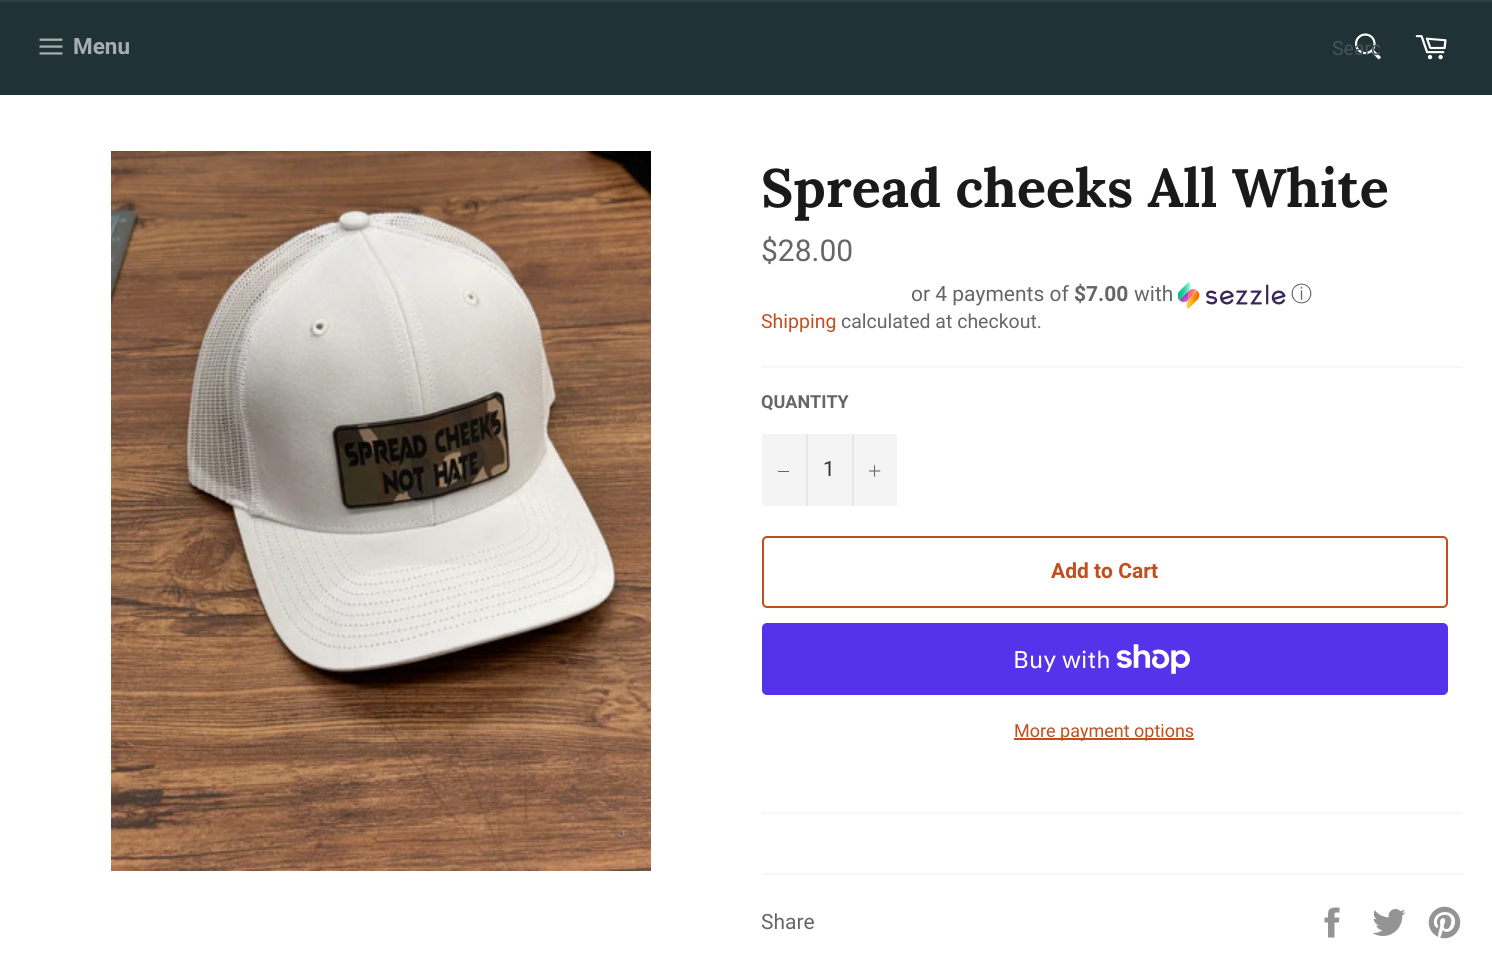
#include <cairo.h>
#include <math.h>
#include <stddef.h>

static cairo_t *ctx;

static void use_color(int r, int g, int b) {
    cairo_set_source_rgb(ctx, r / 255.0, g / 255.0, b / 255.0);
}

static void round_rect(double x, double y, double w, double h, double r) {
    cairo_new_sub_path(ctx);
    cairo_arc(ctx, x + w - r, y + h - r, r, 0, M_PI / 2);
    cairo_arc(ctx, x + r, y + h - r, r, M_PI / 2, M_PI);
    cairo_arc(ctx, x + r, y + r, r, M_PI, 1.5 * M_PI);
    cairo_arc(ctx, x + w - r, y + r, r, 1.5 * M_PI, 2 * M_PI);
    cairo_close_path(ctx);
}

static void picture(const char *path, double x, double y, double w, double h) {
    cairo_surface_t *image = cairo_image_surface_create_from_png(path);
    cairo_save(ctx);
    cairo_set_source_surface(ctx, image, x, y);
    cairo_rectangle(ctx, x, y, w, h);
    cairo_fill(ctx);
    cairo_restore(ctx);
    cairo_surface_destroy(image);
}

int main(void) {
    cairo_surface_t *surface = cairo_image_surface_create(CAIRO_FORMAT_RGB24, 1492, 959);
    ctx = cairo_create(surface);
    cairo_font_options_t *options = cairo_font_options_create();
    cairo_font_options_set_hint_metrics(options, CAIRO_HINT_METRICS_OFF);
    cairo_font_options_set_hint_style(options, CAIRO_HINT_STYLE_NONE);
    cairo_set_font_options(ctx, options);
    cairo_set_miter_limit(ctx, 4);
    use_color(255, 255, 255);
    cairo_paint(ctx);
    use_color(33, 50, 54);
    cairo_rectangle(ctx, 0, 2, 1492, 93);
    cairo_fill(ctx);
    use_color(43, 65, 70);
    cairo_rectangle(ctx, 0, 0, 1492, 2);
    cairo_fill(ctx);
    picture("img1.png", 39, 38, 24, 17);
    cairo_select_font_face(ctx, "Roboto", CAIRO_FONT_SLANT_NORMAL, CAIRO_FONT_WEIGHT_BOLD);
    cairo_set_font_size(ctx, 22.5);
    use_color(166, 173, 175);
    cairo_move_to(ctx, 73, 54);
    cairo_show_text(ctx, "Menu");
    picture("img2.png", 1354, 33, 27, 27);
    cairo_save(ctx);
    cairo_rectangle(ctx, 1332, 38, 48, 22);
    cairo_clip(ctx);
    cairo_select_font_face(ctx, "Roboto", CAIRO_FONT_SLANT_NORMAL, CAIRO_FONT_WEIGHT_NORMAL);
    cairo_set_font_size(ctx, 19.5);
    use_color(69, 84, 87);
    cairo_move_to(ctx, 1332, 55);
    cairo_show_text(ctx, "Searc");
    cairo_restore(ctx);
    picture("img3.png", 1415, 35, 32, 25);
    picture("img4.png", 111, 151, 540, 720);
    cairo_select_font_face(ctx, "Lora", CAIRO_FONT_SLANT_NORMAL, CAIRO_FONT_WEIGHT_BOLD);
    cairo_set_font_size(ctx, 54);
    use_color(26, 26, 26);
    cairo_move_to(ctx, 761, 207);
    cairo_show_text(ctx, "Spread cheeks All White");
    cairo_select_font_face(ctx, "Roboto", CAIRO_FONT_SLANT_NORMAL, CAIRO_FONT_WEIGHT_NORMAL);
    cairo_set_font_size(ctx, 30);
    use_color(102, 102, 102);
    cairo_move_to(ctx, 761, 261);
    cairo_show_text(ctx, "$28.00");
    cairo_set_font_size(ctx, 21);
    cairo_move_to(ctx, 911, 301);
    cairo_show_text(ctx, "or 4 payments of");
    cairo_select_font_face(ctx, "Roboto", CAIRO_FONT_SLANT_NORMAL, CAIRO_FONT_WEIGHT_BOLD);
    cairo_move_to(ctx, 1074, 301);
    cairo_show_text(ctx, "$7.00");
    cairo_select_font_face(ctx, "Roboto", CAIRO_FONT_SLANT_NORMAL, CAIRO_FONT_WEIGHT_NORMAL);
    cairo_move_to(ctx, 1134, 301);
    cairo_show_text(ctx, "with");
    picture("img5.png", 1178, 282, 108, 27);
    cairo_select_font_face(ctx, "WenQuanYi Zen Hei Medium", CAIRO_FONT_SLANT_NORMAL, CAIRO_FONT_WEIGHT_NORMAL);
    cairo_move_to(ctx, 1291, 301);
    cairo_show_text(ctx, "ⓘ");
    cairo_select_font_face(ctx, "Roboto", CAIRO_FONT_SLANT_NORMAL, CAIRO_FONT_WEIGHT_NORMAL);
    cairo_set_font_size(ctx, 19.5);
    use_color(192, 79, 29);
    cairo_move_to(ctx, 761, 328);
    cairo_show_text(ctx, "Shipping");
    use_color(102, 102, 102);
    cairo_move_to(ctx, 841, 328);
    cairo_show_text(ctx, "calculated at checkout.");
    use_color(247, 247, 247);
    cairo_rectangle(ctx, 762, 366, 701, 2);
    cairo_fill(ctx);
    cairo_select_font_face(ctx, "Roboto", CAIRO_FONT_SLANT_NORMAL, CAIRO_FONT_WEIGHT_BOLD);
    cairo_set_font_size(ctx, 18);
    use_color(102, 102, 102);
    cairo_move_to(ctx, 761, 408);
    cairo_show_text(ctx, "QUANTITY");
    use_color(244, 244, 244);
    cairo_rectangle(ctx, 762, 434, 135, 72);
    cairo_fill(ctx);
    use_color(231, 231, 231);
    cairo_rectangle(ctx, 806, 434, 2, 72);
    cairo_fill(ctx);
    use_color(102, 102, 102);
    cairo_rectangle(ctx, 778, 471, 11, 1);
    cairo_fill(ctx);
    cairo_select_font_face(ctx, "Roboto", CAIRO_FONT_SLANT_NORMAL, CAIRO_FONT_WEIGHT_NORMAL);
    cairo_set_font_size(ctx, 21);
    use_color(51, 51, 51);
    cairo_move_to(ctx, 823, 476);
    cairo_show_text(ctx, "1");
    use_color(231, 231, 231);
    cairo_rectangle(ctx, 852, 434, 2, 72);
    cairo_fill(ctx);
    picture("img6.png", 869, 465, 12, 12);
    round_rect(763, 537, 684, 70, 4);
    use_color(192, 79, 29);
    cairo_stroke(ctx);
    cairo_select_font_face(ctx, "Roboto", CAIRO_FONT_SLANT_NORMAL, CAIRO_FONT_WEIGHT_BOLD);
    cairo_move_to(ctx, 1051, 578);
    cairo_show_text(ctx, "Add to Cart");
    use_color(84, 51, 235);
    round_rect(762, 623, 686, 72, 5);
    cairo_fill(ctx);
    cairo_select_font_face(ctx, "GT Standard", CAIRO_FONT_SLANT_NORMAL, CAIRO_FONT_WEIGHT_NORMAL);
    cairo_set_font_size(ctx, 24);
    use_color(255, 255, 255);
    cairo_move_to(ctx, 1013, 668);
    cairo_show_text(ctx, "Buy with");
    picture("img7.png", 1116, 644, 74, 30);
    use_color(192, 79, 29);
    cairo_rectangle(ctx, 1014, 738, 180, 2);
    cairo_fill(ctx);
    cairo_select_font_face(ctx, "Roboto", CAIRO_FONT_SLANT_NORMAL, CAIRO_FONT_WEIGHT_NORMAL);
    cairo_set_font_size(ctx, 18);
    cairo_move_to(ctx, 1014, 737);
    cairo_show_text(ctx, "More payment options");
    use_color(247, 247, 247);
    cairo_rectangle(ctx, 762, 812, 701, 2);
    cairo_fill(ctx);
    cairo_rectangle(ctx, 762, 873, 701, 2);
    cairo_fill(ctx);
    cairo_set_font_size(ctx, 21);
    use_color(102, 102, 102);
    cairo_move_to(ctx, 761, 929);
    cairo_show_text(ctx, "Share");
    picture("img8.png", 1324, 907, 16, 31);
    picture("img9.png", 1372, 909, 34, 27);
    picture("img10.png", 1428, 906, 33, 33);
    cairo_surface_write_to_png(surface, "result.png");
    cairo_font_options_destroy(options);
    cairo_destroy(ctx);
    cairo_surface_destroy(surface);
    return 0;
}
